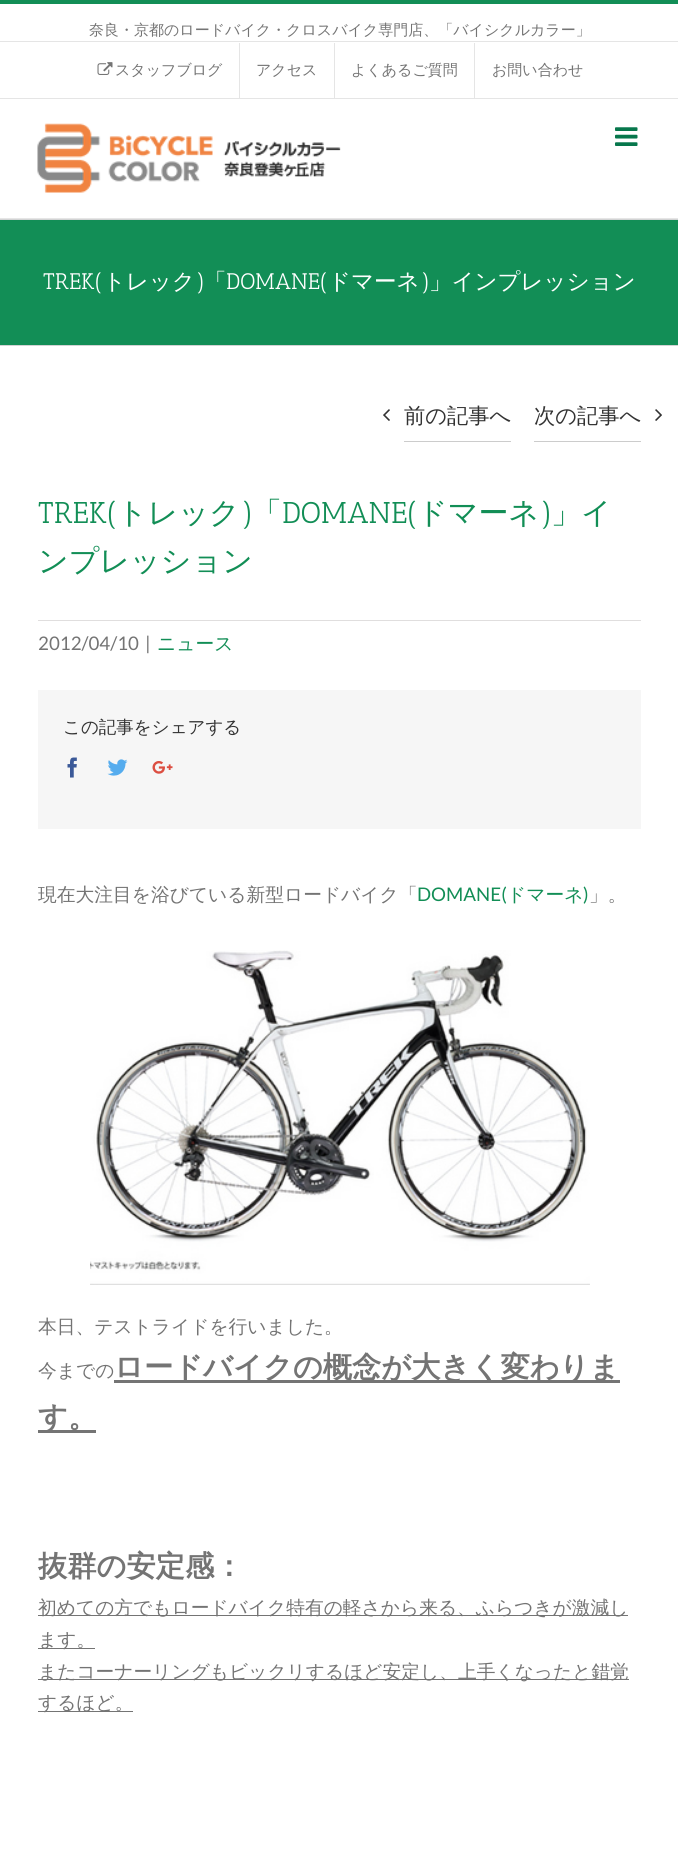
#include <cairo.h>
#include <math.h>
#include <stddef.h>

static cairo_t *ctx;

static void use_color(int r, int g, int b) {
    cairo_set_source_rgb(ctx, r / 255.0, g / 255.0, b / 255.0);
}

static void picture(const char *path, double x, double y, double w, double h) {
    cairo_surface_t *image = cairo_image_surface_create_from_png(path);
    cairo_save(ctx);
    cairo_set_source_surface(ctx, image, x, y);
    cairo_rectangle(ctx, x, y, w, h);
    cairo_fill(ctx);
    cairo_restore(ctx);
    cairo_surface_destroy(image);
}

int main(void) {
    cairo_surface_t *surface = cairo_image_surface_create(CAIRO_FORMAT_RGB24, 678, 1873);
    ctx = cairo_create(surface);
    cairo_font_options_t *options = cairo_font_options_create();
    cairo_font_options_set_hint_metrics(options, CAIRO_HINT_METRICS_OFF);
    cairo_font_options_set_hint_style(options, CAIRO_HINT_STYLE_NONE);
    cairo_set_font_options(ctx, options);
    cairo_set_miter_limit(ctx, 4);
    use_color(255, 255, 255);
    cairo_paint(ctx);
    use_color(18, 142, 86);
    cairo_rectangle(ctx, 0, 0, 678, 4);
    cairo_fill(ctx);
    use_color(229, 229, 229);
    cairo_rectangle(ctx, 0, 98, 678, 1);
    cairo_fill(ctx);
    cairo_rectangle(ctx, 0, 41, 678, 1);
    cairo_fill(ctx);
    cairo_select_font_face(ctx, "WenQuanYi Zen Hei Medium", CAIRO_FONT_SLANT_NORMAL, CAIRO_FONT_WEIGHT_NORMAL);
    cairo_set_font_size(ctx, 15);
    use_color(116, 116, 116);
    cairo_move_to(ctx, 89, 35);
    cairo_show_text(ctx, "奈良・京都のロードバイク・クロスバイク専門店、「バイシクルカラー」");
    picture("img1.png", 97, 62, 16, 13);
    cairo_move_to(ctx, 115, 75);
    cairo_show_text(ctx, "スタッフブログ");
    use_color(229, 229, 229);
    cairo_rectangle(ctx, 239, 43, 1, 55);
    cairo_fill(ctx);
    use_color(116, 116, 116);
    cairo_move_to(ctx, 256, 75);
    cairo_show_text(ctx, "アクセス");
    use_color(229, 229, 229);
    cairo_rectangle(ctx, 334, 43, 1, 55);
    cairo_fill(ctx);
    use_color(116, 116, 116);
    cairo_move_to(ctx, 351, 75);
    cairo_show_text(ctx, "よくあるご質問");
    use_color(229, 229, 229);
    cairo_rectangle(ctx, 474, 43, 1, 55);
    cairo_fill(ctx);
    use_color(116, 116, 116);
    cairo_move_to(ctx, 492, 75);
    cairo_show_text(ctx, "お問い合わせ");
    use_color(229, 229, 229);
    cairo_rectangle(ctx, 0, 218, 678, 1);
    cairo_fill(ctx);
    picture("img2.png", 37, 123, 304, 70);
    picture("img3.png", 615, 127, 23, 19);
    use_color(18, 142, 86);
    cairo_rectangle(ctx, 0, 220, 678, 125);
    cairo_fill(ctx);
    use_color(210, 211, 212);
    cairo_rectangle(ctx, 0, 219, 678, 1);
    cairo_fill(ctx);
    cairo_rectangle(ctx, 0, 345, 678, 1);
    cairo_fill(ctx);
    cairo_select_font_face(ctx, "Antic Slab", CAIRO_FONT_SLANT_NORMAL, CAIRO_FONT_WEIGHT_NORMAL);
    cairo_set_font_size(ctx, 22.5);
    use_color(255, 255, 255);
    cairo_move_to(ctx, 43, 289);
    cairo_show_text(ctx, "TREK(");
    cairo_select_font_face(ctx, "WenQuanYi Zen Hei Medium", CAIRO_FONT_SLANT_NORMAL, CAIRO_FONT_WEIGHT_NORMAL);
    cairo_move_to(ctx, 103, 289);
    cairo_show_text(ctx, "トレック");
    cairo_select_font_face(ctx, "Antic Slab", CAIRO_FONT_SLANT_NORMAL, CAIRO_FONT_WEIGHT_NORMAL);
    cairo_move_to(ctx, 195, 289);
    cairo_show_text(ctx, ")");
    cairo_select_font_face(ctx, "WenQuanYi Zen Hei Medium", CAIRO_FONT_SLANT_NORMAL, CAIRO_FONT_WEIGHT_NORMAL);
    cairo_move_to(ctx, 204, 289);
    cairo_show_text(ctx, "「");
    cairo_select_font_face(ctx, "Antic Slab", CAIRO_FONT_SLANT_NORMAL, CAIRO_FONT_WEIGHT_NORMAL);
    cairo_move_to(ctx, 226, 289);
    cairo_show_text(ctx, "DOMANE(");
    cairo_select_font_face(ctx, "WenQuanYi Zen Hei Medium", CAIRO_FONT_SLANT_NORMAL, CAIRO_FONT_WEIGHT_NORMAL);
    cairo_move_to(ctx, 328, 289);
    cairo_show_text(ctx, "ドマーネ");
    cairo_select_font_face(ctx, "Antic Slab", CAIRO_FONT_SLANT_NORMAL, CAIRO_FONT_WEIGHT_NORMAL);
    cairo_move_to(ctx, 420, 289);
    cairo_show_text(ctx, ")");
    cairo_select_font_face(ctx, "WenQuanYi Zen Hei Medium", CAIRO_FONT_SLANT_NORMAL, CAIRO_FONT_WEIGHT_NORMAL);
    cairo_move_to(ctx, 429, 289);
    cairo_show_text(ctx, "」インプレッション");
    use_color(204, 204, 204);
    cairo_rectangle(ctx, 404, 441, 107, 1);
    cairo_fill(ctx);
    picture("img4.png", 383, 409, 7, 12);
    cairo_set_font_size(ctx, 21.25);
    use_color(51, 51, 51);
    cairo_move_to(ctx, 404, 423);
    cairo_show_text(ctx, "前の記事へ");
    use_color(204, 204, 204);
    cairo_rectangle(ctx, 534, 441, 107, 1);
    cairo_fill(ctx);
    use_color(51, 51, 51);
    cairo_move_to(ctx, 534, 423);
    cairo_show_text(ctx, "次の記事へ");
    picture("img5.png", 655, 409, 7, 12);
    cairo_select_font_face(ctx, "Antic Slab", CAIRO_FONT_SLANT_NORMAL, CAIRO_FONT_WEIGHT_NORMAL);
    cairo_set_font_size(ctx, 30);
    use_color(18, 142, 86);
    cairo_move_to(ctx, 38, 523);
    cairo_show_text(ctx, "TREK(");
    cairo_select_font_face(ctx, "WenQuanYi Zen Hei Medium", CAIRO_FONT_SLANT_NORMAL, CAIRO_FONT_WEIGHT_NORMAL);
    cairo_move_to(ctx, 117, 523);
    cairo_show_text(ctx, "トレック");
    cairo_select_font_face(ctx, "Antic Slab", CAIRO_FONT_SLANT_NORMAL, CAIRO_FONT_WEIGHT_NORMAL);
    cairo_move_to(ctx, 240, 523);
    cairo_show_text(ctx, ")");
    cairo_select_font_face(ctx, "WenQuanYi Zen Hei Medium", CAIRO_FONT_SLANT_NORMAL, CAIRO_FONT_WEIGHT_NORMAL);
    cairo_move_to(ctx, 252, 523);
    cairo_show_text(ctx, "「");
    cairo_select_font_face(ctx, "Antic Slab", CAIRO_FONT_SLANT_NORMAL, CAIRO_FONT_WEIGHT_NORMAL);
    cairo_move_to(ctx, 282, 523);
    cairo_show_text(ctx, "DOMANE(");
    cairo_select_font_face(ctx, "WenQuanYi Zen Hei Medium", CAIRO_FONT_SLANT_NORMAL, CAIRO_FONT_WEIGHT_NORMAL);
    cairo_move_to(ctx, 417, 523);
    cairo_show_text(ctx, "ドマーネ");
    cairo_select_font_face(ctx, "Antic Slab", CAIRO_FONT_SLANT_NORMAL, CAIRO_FONT_WEIGHT_NORMAL);
    cairo_move_to(ctx, 539, 523);
    cairo_show_text(ctx, ")");
    cairo_select_font_face(ctx, "WenQuanYi Zen Hei Medium", CAIRO_FONT_SLANT_NORMAL, CAIRO_FONT_WEIGHT_NORMAL);
    cairo_move_to(ctx, 551, 523);
    cairo_show_text(ctx, "」イ");
    cairo_move_to(ctx, 38, 571);
    cairo_show_text(ctx, "ンプレッション");
    use_color(224, 222, 222);
    cairo_rectangle(ctx, 38, 620, 603, 1);
    cairo_fill(ctx);
    cairo_select_font_face(ctx, "Lato", CAIRO_FONT_SLANT_NORMAL, CAIRO_FONT_WEIGHT_NORMAL);
    cairo_set_font_size(ctx, 18.75);
    use_color(116, 116, 116);
    cairo_move_to(ctx, 38, 650);
    cairo_show_text(ctx, "2012/04/10");
    cairo_move_to(ctx, 145, 650);
    cairo_show_text(ctx, "|");
    cairo_select_font_face(ctx, "WenQuanYi Zen Hei Medium", CAIRO_FONT_SLANT_NORMAL, CAIRO_FONT_WEIGHT_NORMAL);
    use_color(18, 142, 86);
    cairo_move_to(ctx, 157, 650);
    cairo_show_text(ctx, "ニュース");
    use_color(246, 246, 246);
    cairo_rectangle(ctx, 38, 690, 603, 139);
    cairo_fill(ctx);
    cairo_set_font_size(ctx, 17.5);
    use_color(51, 51, 51);
    cairo_move_to(ctx, 63, 733);
    cairo_show_text(ctx, "この記事をシェアする");
    picture("img6.png", 67, 757, 10, 21);
    picture("img7.png", 107, 759, 21, 17);
    picture("img8.png", 152, 761, 21, 13);
    cairo_set_font_size(ctx, 18.75);
    use_color(116, 116, 116);
    cairo_move_to(ctx, 38, 901);
    cairo_show_text(ctx, "現在大注目を浴びている新型ロードバイク「");
    cairo_select_font_face(ctx, "Lato", CAIRO_FONT_SLANT_NORMAL, CAIRO_FONT_WEIGHT_NORMAL);
    use_color(18, 142, 86);
    cairo_move_to(ctx, 417, 901);
    cairo_show_text(ctx, "DOMANE(");
    cairo_select_font_face(ctx, "WenQuanYi Zen Hei Medium", CAIRO_FONT_SLANT_NORMAL, CAIRO_FONT_WEIGHT_NORMAL);
    cairo_move_to(ctx, 507, 901);
    cairo_show_text(ctx, "ドマーネ");
    cairo_select_font_face(ctx, "Lato", CAIRO_FONT_SLANT_NORMAL, CAIRO_FONT_WEIGHT_NORMAL);
    cairo_move_to(ctx, 583, 901);
    cairo_show_text(ctx, ")");
    cairo_select_font_face(ctx, "WenQuanYi Zen Hei Medium", CAIRO_FONT_SLANT_NORMAL, CAIRO_FONT_WEIGHT_NORMAL);
    use_color(116, 116, 116);
    cairo_move_to(ctx, 589, 901);
    cairo_show_text(ctx, "」。");
    picture("img9.png", 90, 950, 500, 335);
    cairo_move_to(ctx, 38, 1333);
    cairo_show_text(ctx, "本日、テストライドを行いました。");
    cairo_move_to(ctx, 38, 1377);
    cairo_show_text(ctx, "今までの");
    cairo_rectangle(ctx, 114, 1380, 506, 3);
    cairo_fill(ctx);
    cairo_select_font_face(ctx, "WenQuanYi Zen Hei", CAIRO_FONT_SLANT_NORMAL, CAIRO_FONT_WEIGHT_BOLD);
    cairo_set_font_size(ctx, 29.25);
    cairo_move_to(ctx, 114, 1377);
    cairo_show_text(ctx, "ロードバイクの概念が大きく変わりま");
    cairo_rectangle(ctx, 38, 1430, 58, 3);
    cairo_fill(ctx);
    cairo_move_to(ctx, 38, 1427);
    cairo_show_text(ctx, "す。");
    cairo_move_to(ctx, 38, 1576);
    cairo_show_text(ctx, "抜群の安定感：");
    cairo_rectangle(ctx, 38, 1615, 590, 1);
    cairo_fill(ctx);
    cairo_select_font_face(ctx, "WenQuanYi Zen Hei Medium", CAIRO_FONT_SLANT_NORMAL, CAIRO_FONT_WEIGHT_NORMAL);
    cairo_set_font_size(ctx, 18.75);
    cairo_move_to(ctx, 38, 1614);
    cairo_show_text(ctx, "初めての方でもロードバイク特有の軽さから来る、ふらつきが激減し");
    cairo_rectangle(ctx, 38, 1648, 57, 1);
    cairo_fill(ctx);
    cairo_move_to(ctx, 38, 1646);
    cairo_show_text(ctx, "ます。");
    cairo_rectangle(ctx, 38, 1679, 591, 1);
    cairo_fill(ctx);
    cairo_move_to(ctx, 38, 1678);
    cairo_show_text(ctx, "またコーナーリングもビックリするほど安定し、上手くなったと錯覚");
    cairo_rectangle(ctx, 38, 1711, 95, 1);
    cairo_fill(ctx);
    cairo_move_to(ctx, 38, 1709);
    cairo_show_text(ctx, "するほど。");
    cairo_surface_write_to_png(surface, "result.png");
    cairo_font_options_destroy(options);
    cairo_destroy(ctx);
    cairo_surface_destroy(surface);
    return 0;
}
